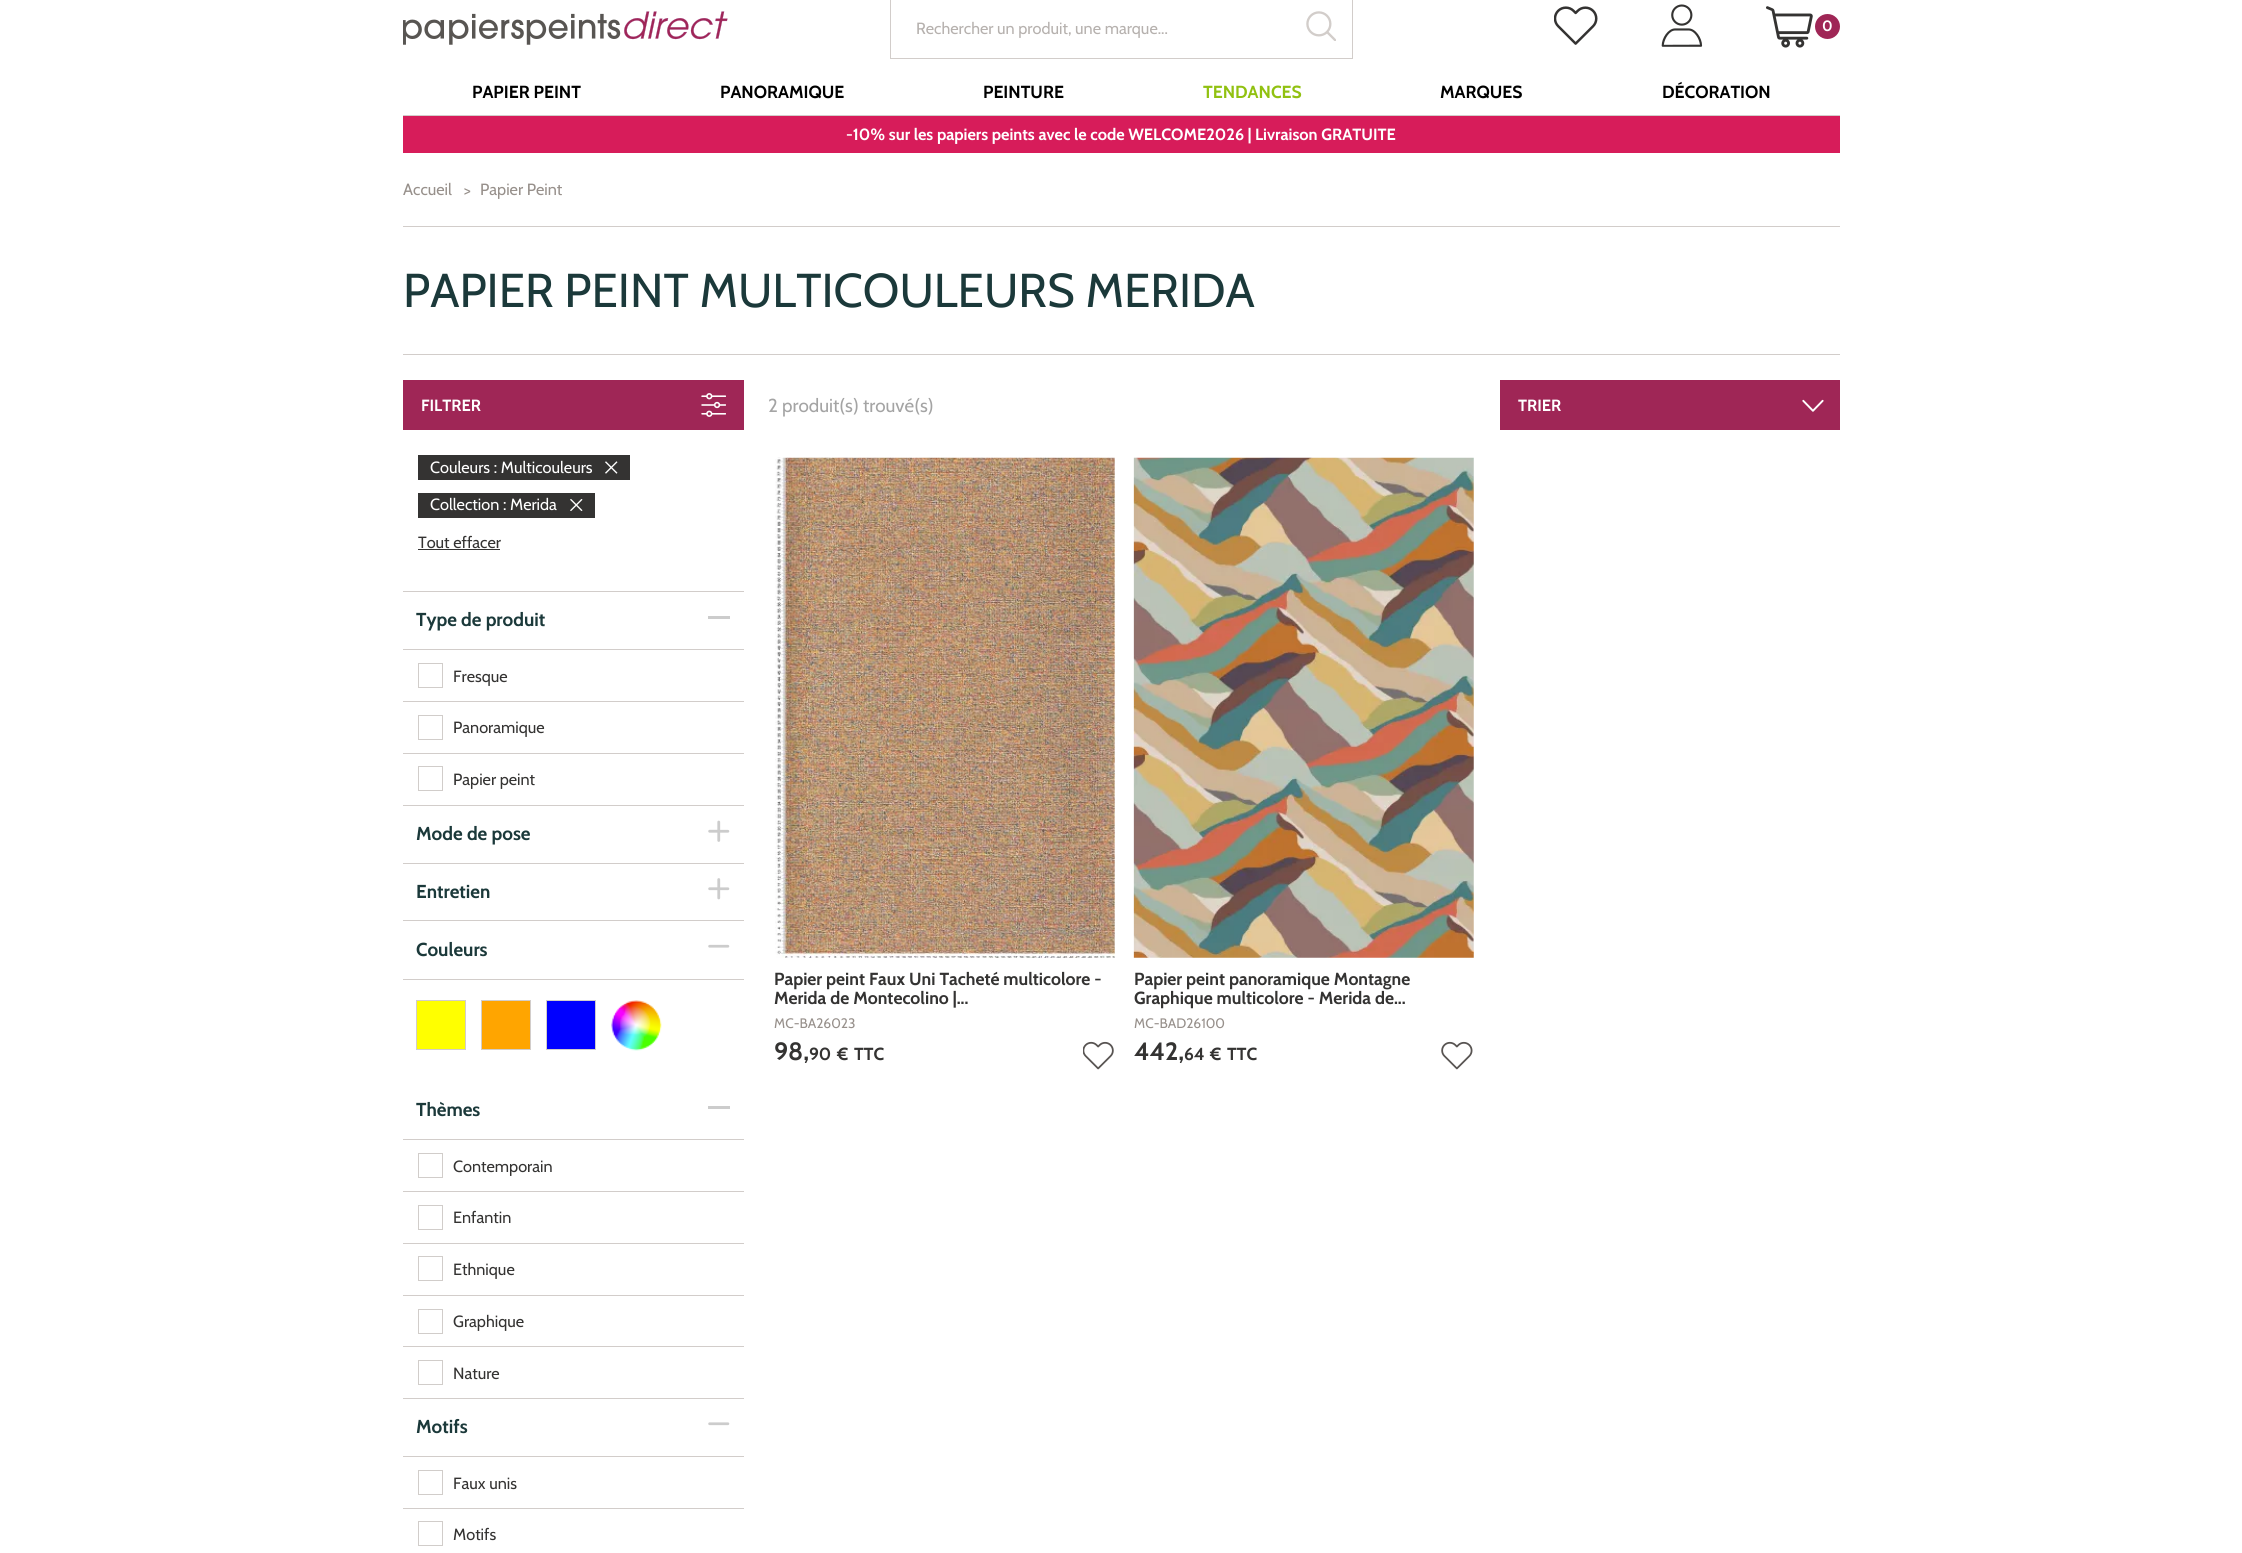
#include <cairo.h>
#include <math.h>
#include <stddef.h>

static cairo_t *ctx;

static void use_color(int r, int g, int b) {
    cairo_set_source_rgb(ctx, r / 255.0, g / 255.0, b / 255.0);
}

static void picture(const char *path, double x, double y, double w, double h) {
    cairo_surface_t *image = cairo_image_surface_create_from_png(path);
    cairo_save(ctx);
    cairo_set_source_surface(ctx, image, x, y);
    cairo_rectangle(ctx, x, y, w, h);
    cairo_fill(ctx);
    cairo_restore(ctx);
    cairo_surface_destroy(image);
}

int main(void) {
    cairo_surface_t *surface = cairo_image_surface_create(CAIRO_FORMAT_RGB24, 2242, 1553);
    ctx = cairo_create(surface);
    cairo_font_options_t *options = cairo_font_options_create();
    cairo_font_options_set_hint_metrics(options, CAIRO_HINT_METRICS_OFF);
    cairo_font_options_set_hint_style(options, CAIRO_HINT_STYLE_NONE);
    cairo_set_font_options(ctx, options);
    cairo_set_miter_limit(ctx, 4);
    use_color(255, 255, 255);
    cairo_paint(ctx);
    picture("img1.png", 403, 11, 325, 34);
    cairo_rectangle(ctx, 890.5, -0.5, 462, 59);
    use_color(210, 205, 202);
    cairo_set_line_width(ctx, 1);
    cairo_stroke(ctx);
    cairo_select_font_face(ctx, "Cabin", CAIRO_FONT_SLANT_NORMAL, CAIRO_FONT_WEIGHT_NORMAL);
    cairo_set_font_size(ctx, 16.25);
    use_color(182, 177, 174);
    cairo_move_to(ctx, 916, 34);
    cairo_show_text(ctx, "Rechercher un produit, une marque...");
    picture("img2.png", 1306, 11, 30, 30);
    picture("img3.png", 1554, 6, 44, 39);
    picture("img4.png", 1661, 4, 42, 43);
    picture("img5.png", 1766, 6, 47, 42);
    use_color(159, 38, 86);
    cairo_arc(ctx, 1827.5, 26.5, 12.5, 0, 2 * M_PI);
    cairo_fill(ctx);
    cairo_select_font_face(ctx, "Cabin", CAIRO_FONT_SLANT_NORMAL, CAIRO_FONT_WEIGHT_BOLD);
    cairo_set_font_size(ctx, 15);
    use_color(255, 255, 255);
    cairo_move_to(ctx, 1822, 31);
    cairo_show_text(ctx, "0");
    use_color(210, 205, 202);
    cairo_rectangle(ctx, 403, 115, 1437, 1);
    cairo_fill(ctx);
    cairo_set_font_size(ctx, 17.5);
    use_color(0, 0, 0);
    cairo_move_to(ctx, 472, 98);
    cairo_show_text(ctx, "PAPIER PEINT");
    cairo_move_to(ctx, 720, 98);
    cairo_show_text(ctx, "PANORAMIQUE");
    cairo_move_to(ctx, 983, 98);
    cairo_show_text(ctx, "PEINTURE");
    use_color(145, 193, 17);
    cairo_move_to(ctx, 1203, 98);
    cairo_show_text(ctx, "TENDANCES");
    use_color(0, 0, 0);
    cairo_move_to(ctx, 1440, 98);
    cairo_show_text(ctx, "MARQUES");
    cairo_move_to(ctx, 1662, 98);
    cairo_show_text(ctx, "DÉCORATION");
    use_color(215, 28, 90);
    cairo_rectangle(ctx, 403, 116, 1437, 37);
    cairo_fill(ctx);
    cairo_set_font_size(ctx, 16.25);
    use_color(255, 255, 255);
    cairo_move_to(ctx, 846, 140);
    cairo_show_text(ctx, "-10% sur les papiers peints avec le code WELCOME2026 | Livraison GRATUITE");
    use_color(210, 205, 202);
    cairo_rectangle(ctx, 403, 226, 1437, 1);
    cairo_fill(ctx);
    cairo_select_font_face(ctx, "Cabin", CAIRO_FONT_SLANT_NORMAL, CAIRO_FONT_WEIGHT_NORMAL);
    use_color(151, 144, 139);
    cairo_move_to(ctx, 403, 195);
    cairo_show_text(ctx, "Accueil");
    cairo_move_to(ctx, 464, 196);
    cairo_show_text(ctx, ">");
    cairo_move_to(ctx, 480, 195);
    cairo_show_text(ctx, "Papier Peint");
    use_color(210, 205, 202);
    cairo_rectangle(ctx, 403, 354, 1437, 1);
    cairo_fill(ctx);
    cairo_set_font_size(ctx, 47.5);
    use_color(27, 57, 58);
    cairo_move_to(ctx, 403, 307);
    cairo_show_text(ctx, "PAPIER PEINT MULTICOULEURS MERIDA");
    use_color(159, 38, 86);
    cairo_rectangle(ctx, 403, 380, 341, 50);
    cairo_fill(ctx);
    cairo_select_font_face(ctx, "Cabin", CAIRO_FONT_SLANT_NORMAL, CAIRO_FONT_WEIGHT_BOLD);
    cairo_set_font_size(ctx, 16.25);
    use_color(255, 255, 255);
    cairo_move_to(ctx, 421, 411);
    cairo_show_text(ctx, "FILTRER");
    picture("img6.png", 701, 393, 25, 24);
    use_color(210, 205, 202);
    cairo_rectangle(ctx, 403, 591, 341, 1);
    cairo_fill(ctx);
    use_color(52, 51, 50);
    cairo_rectangle(ctx, 418, 455, 212, 25);
    cairo_fill(ctx);
    cairo_select_font_face(ctx, "Cabin", CAIRO_FONT_SLANT_NORMAL, CAIRO_FONT_WEIGHT_NORMAL);
    use_color(255, 255, 255);
    cairo_move_to(ctx, 430, 473);
    cairo_show_text(ctx, "Couleurs : Multicouleurs");
    picture("img7.png", 605, 461, 13, 13);
    use_color(52, 51, 50);
    cairo_rectangle(ctx, 418, 493, 177, 25);
    cairo_fill(ctx);
    use_color(255, 255, 255);
    cairo_move_to(ctx, 430, 510);
    cairo_show_text(ctx, "Collection : Merida");
    picture("img8.png", 570, 499, 13, 12);
    use_color(52, 51, 50);
    cairo_move_to(ctx, 418, 548);
    cairo_show_text(ctx, "Tout effacer");
    cairo_rectangle(ctx, 418, 549, 82, 1);
    cairo_fill(ctx);
    use_color(210, 205, 202);
    cairo_rectangle(ctx, 403, 649, 341, 1);
    cairo_fill(ctx);
    cairo_select_font_face(ctx, "Cabin", CAIRO_FONT_SLANT_NORMAL, CAIRO_FONT_WEIGHT_BOLD);
    cairo_set_font_size(ctx, 18.75);
    use_color(27, 57, 58);
    cairo_move_to(ctx, 416, 626);
    cairo_show_text(ctx, "Type de produit");
    use_color(204, 204, 204);
    cairo_rectangle(ctx, 708, 616, 22, 3);
    cairo_fill(ctx);
    use_color(210, 205, 202);
    cairo_rectangle(ctx, 403, 805, 341, 1);
    cairo_fill(ctx);
    cairo_rectangle(ctx, 418.5, 663.5, 24, 24);
    use_color(209, 205, 202);
    cairo_stroke(ctx);
    cairo_select_font_face(ctx, "Cabin", CAIRO_FONT_SLANT_NORMAL, CAIRO_FONT_WEIGHT_NORMAL);
    cairo_set_font_size(ctx, 16.25);
    use_color(52, 51, 50);
    cairo_move_to(ctx, 453, 682);
    cairo_show_text(ctx, "Fresque");
    use_color(210, 205, 202);
    cairo_rectangle(ctx, 403, 701, 341, 1);
    cairo_fill(ctx);
    cairo_rectangle(ctx, 418.5, 715.5, 24, 24);
    use_color(209, 205, 202);
    cairo_stroke(ctx);
    use_color(52, 51, 50);
    cairo_move_to(ctx, 453, 733);
    cairo_show_text(ctx, "Panoramique");
    use_color(210, 205, 202);
    cairo_rectangle(ctx, 403, 753, 341, 1);
    cairo_fill(ctx);
    cairo_rectangle(ctx, 418.5, 766.5, 24, 24);
    use_color(209, 205, 202);
    cairo_stroke(ctx);
    use_color(52, 51, 50);
    cairo_move_to(ctx, 453, 785);
    cairo_show_text(ctx, "Papier peint");
    use_color(210, 205, 202);
    cairo_rectangle(ctx, 403, 863, 341, 1);
    cairo_fill(ctx);
    cairo_select_font_face(ctx, "Cabin", CAIRO_FONT_SLANT_NORMAL, CAIRO_FONT_WEIGHT_BOLD);
    cairo_set_font_size(ctx, 18.75);
    use_color(27, 57, 58);
    cairo_move_to(ctx, 416, 840);
    cairo_show_text(ctx, "Mode de pose");
    picture("img9.png", 708, 820, 22, 22);
    use_color(210, 205, 202);
    cairo_rectangle(ctx, 403, 920, 341, 1);
    cairo_fill(ctx);
    use_color(27, 57, 58);
    cairo_move_to(ctx, 416, 898);
    cairo_show_text(ctx, "Entretien");
    picture("img10.png", 708, 878, 22, 22);
    use_color(210, 205, 202);
    cairo_rectangle(ctx, 403, 979, 341, 1);
    cairo_fill(ctx);
    use_color(27, 57, 58);
    cairo_move_to(ctx, 416, 956);
    cairo_show_text(ctx, "Couleurs");
    picture("img11.png", 708, 944, 22, 4);
    use_color(255, 255, 0);
    cairo_rectangle(ctx, 416.5, 1000.5, 49, 49);
    cairo_fill_preserve(ctx);
    use_color(210, 205, 202);
    cairo_stroke(ctx);
    use_color(255, 165, 0);
    cairo_rectangle(ctx, 481.5, 1000.5, 49, 49);
    cairo_fill_preserve(ctx);
    use_color(210, 205, 202);
    cairo_stroke(ctx);
    use_color(0, 0, 255);
    cairo_rectangle(ctx, 546.5, 1000.5, 49, 49);
    cairo_fill_preserve(ctx);
    use_color(210, 205, 202);
    cairo_stroke(ctx);
    picture("img12.png", 611, 1000, 51, 51);
    cairo_rectangle(ctx, 403, 1139, 341, 1);
    cairo_fill(ctx);
    use_color(27, 57, 58);
    cairo_move_to(ctx, 416, 1116);
    cairo_show_text(ctx, "Thèmes");
    use_color(204, 204, 204);
    cairo_rectangle(ctx, 708, 1106, 22, 3);
    cairo_fill(ctx);
    use_color(210, 205, 202);
    cairo_rectangle(ctx, 403, 1398, 341, 1);
    cairo_fill(ctx);
    cairo_rectangle(ctx, 418.5, 1153.5, 24, 24);
    use_color(209, 205, 202);
    cairo_stroke(ctx);
    cairo_select_font_face(ctx, "Cabin", CAIRO_FONT_SLANT_NORMAL, CAIRO_FONT_WEIGHT_NORMAL);
    cairo_set_font_size(ctx, 16.25);
    use_color(52, 51, 50);
    cairo_move_to(ctx, 453, 1172);
    cairo_show_text(ctx, "Contemporain");
    use_color(210, 205, 202);
    cairo_rectangle(ctx, 403, 1191, 341, 1);
    cairo_fill(ctx);
    cairo_rectangle(ctx, 418.5, 1205.5, 24, 24);
    use_color(209, 205, 202);
    cairo_stroke(ctx);
    use_color(52, 51, 50);
    cairo_move_to(ctx, 453, 1223);
    cairo_show_text(ctx, "Enfantin");
    use_color(210, 205, 202);
    cairo_rectangle(ctx, 403, 1243, 341, 1);
    cairo_fill(ctx);
    cairo_rectangle(ctx, 418.5, 1256.5, 24, 24);
    use_color(209, 205, 202);
    cairo_stroke(ctx);
    use_color(52, 51, 50);
    cairo_move_to(ctx, 453, 1275);
    cairo_show_text(ctx, "Ethnique");
    use_color(210, 205, 202);
    cairo_rectangle(ctx, 403, 1295, 341, 1);
    cairo_fill(ctx);
    cairo_rectangle(ctx, 418.5, 1309.5, 24, 24);
    use_color(209, 205, 202);
    cairo_stroke(ctx);
    use_color(52, 51, 50);
    cairo_move_to(ctx, 453, 1327);
    cairo_show_text(ctx, "Graphique");
    use_color(210, 205, 202);
    cairo_rectangle(ctx, 403, 1346, 341, 1);
    cairo_fill(ctx);
    cairo_rectangle(ctx, 418.5, 1360.5, 24, 24);
    use_color(209, 205, 202);
    cairo_stroke(ctx);
    use_color(52, 51, 50);
    cairo_move_to(ctx, 453, 1379);
    cairo_show_text(ctx, "Nature");
    use_color(210, 205, 202);
    cairo_rectangle(ctx, 403, 1456, 341, 1);
    cairo_fill(ctx);
    cairo_select_font_face(ctx, "Cabin", CAIRO_FONT_SLANT_NORMAL, CAIRO_FONT_WEIGHT_BOLD);
    cairo_set_font_size(ctx, 18.75);
    use_color(27, 57, 58);
    cairo_move_to(ctx, 416, 1433);
    cairo_show_text(ctx, "Motifs");
    picture("img13.png", 708, 1422, 22, 4);
    cairo_rectangle(ctx, 418.5, 1470.5, 24, 24);
    use_color(209, 205, 202);
    cairo_stroke(ctx);
    cairo_select_font_face(ctx, "Cabin", CAIRO_FONT_SLANT_NORMAL, CAIRO_FONT_WEIGHT_NORMAL);
    cairo_set_font_size(ctx, 16.25);
    use_color(52, 51, 50);
    cairo_move_to(ctx, 453, 1489);
    cairo_show_text(ctx, "Faux unis");
    use_color(210, 205, 202);
    cairo_rectangle(ctx, 403, 1508, 341, 1);
    cairo_fill(ctx);
    cairo_rectangle(ctx, 418.5, 1521.5, 24, 24);
    use_color(209, 205, 202);
    cairo_stroke(ctx);
    use_color(52, 51, 50);
    cairo_move_to(ctx, 453, 1540);
    cairo_show_text(ctx, "Motifs");
    cairo_set_font_size(ctx, 18.75);
    use_color(164, 164, 164);
    cairo_move_to(ctx, 768, 412);
    cairo_show_text(ctx, "2 produit(s) trouvé(s)");
    use_color(159, 38, 86);
    cairo_rectangle(ctx, 1500, 380, 340, 50);
    cairo_fill(ctx);
    cairo_select_font_face(ctx, "Cabin", CAIRO_FONT_SLANT_NORMAL, CAIRO_FONT_WEIGHT_BOLD);
    cairo_set_font_size(ctx, 16.25);
    use_color(255, 255, 255);
    cairo_move_to(ctx, 1518, 411);
    cairo_show_text(ctx, "TRIER");
    picture("img14.png", 1802, 399, 22, 13);
    picture("img15.png", 775, 457, 340, 501);
    cairo_set_font_size(ctx, 17.5);
    use_color(52, 51, 50);
    cairo_move_to(ctx, 774, 985);
    cairo_show_text(ctx, "Papier peint Faux Uni Tacheté multicolore -");
    cairo_move_to(ctx, 774, 1004);
    cairo_show_text(ctx, "Merida de Montecolino |...");
    cairo_select_font_face(ctx, "Cabin", CAIRO_FONT_SLANT_NORMAL, CAIRO_FONT_WEIGHT_NORMAL);
    cairo_set_font_size(ctx, 13.75);
    use_color(151, 144, 139);
    cairo_move_to(ctx, 774, 1028);
    cairo_show_text(ctx, "MC-BA26023");
    cairo_select_font_face(ctx, "Cabin", CAIRO_FONT_SLANT_NORMAL, CAIRO_FONT_WEIGHT_BOLD);
    cairo_set_font_size(ctx, 25);
    use_color(52, 51, 50);
    cairo_move_to(ctx, 774, 1060);
    cairo_show_text(ctx, "98,");
    cairo_set_font_size(ctx, 17.5);
    cairo_move_to(ctx, 809, 1060);
    cairo_show_text(ctx, "90");
    cairo_move_to(ctx, 837, 1060);
    cairo_show_text(ctx, "€");
    cairo_move_to(ctx, 854, 1060);
    cairo_show_text(ctx, "TTC");
    picture("img16.png", 1083, 1041, 31, 29);
    picture("img17.png", 1133, 457, 341, 501);
    cairo_move_to(ctx, 1134, 985);
    cairo_show_text(ctx, "Papier peint panoramique Montagne");
    cairo_move_to(ctx, 1134, 1004);
    cairo_show_text(ctx, "Graphique multicolore - Merida de...");
    cairo_select_font_face(ctx, "Cabin", CAIRO_FONT_SLANT_NORMAL, CAIRO_FONT_WEIGHT_NORMAL);
    cairo_set_font_size(ctx, 13.75);
    use_color(151, 144, 139);
    cairo_move_to(ctx, 1134, 1028);
    cairo_show_text(ctx, "MC-BAD26100");
    cairo_select_font_face(ctx, "Cabin", CAIRO_FONT_SLANT_NORMAL, CAIRO_FONT_WEIGHT_BOLD);
    cairo_set_font_size(ctx, 25);
    use_color(52, 51, 50);
    cairo_move_to(ctx, 1134, 1060);
    cairo_show_text(ctx, "442,");
    cairo_set_font_size(ctx, 17.5);
    cairo_move_to(ctx, 1184, 1060);
    cairo_show_text(ctx, "64");
    cairo_move_to(ctx, 1210, 1060);
    cairo_show_text(ctx, "€");
    cairo_move_to(ctx, 1227, 1060);
    cairo_show_text(ctx, "TTC");
    picture("img18.png", 1441, 1041, 32, 29);
    cairo_surface_write_to_png(surface, "result.png");
    cairo_font_options_destroy(options);
    cairo_destroy(ctx);
    cairo_surface_destroy(surface);
    return 0;
}
